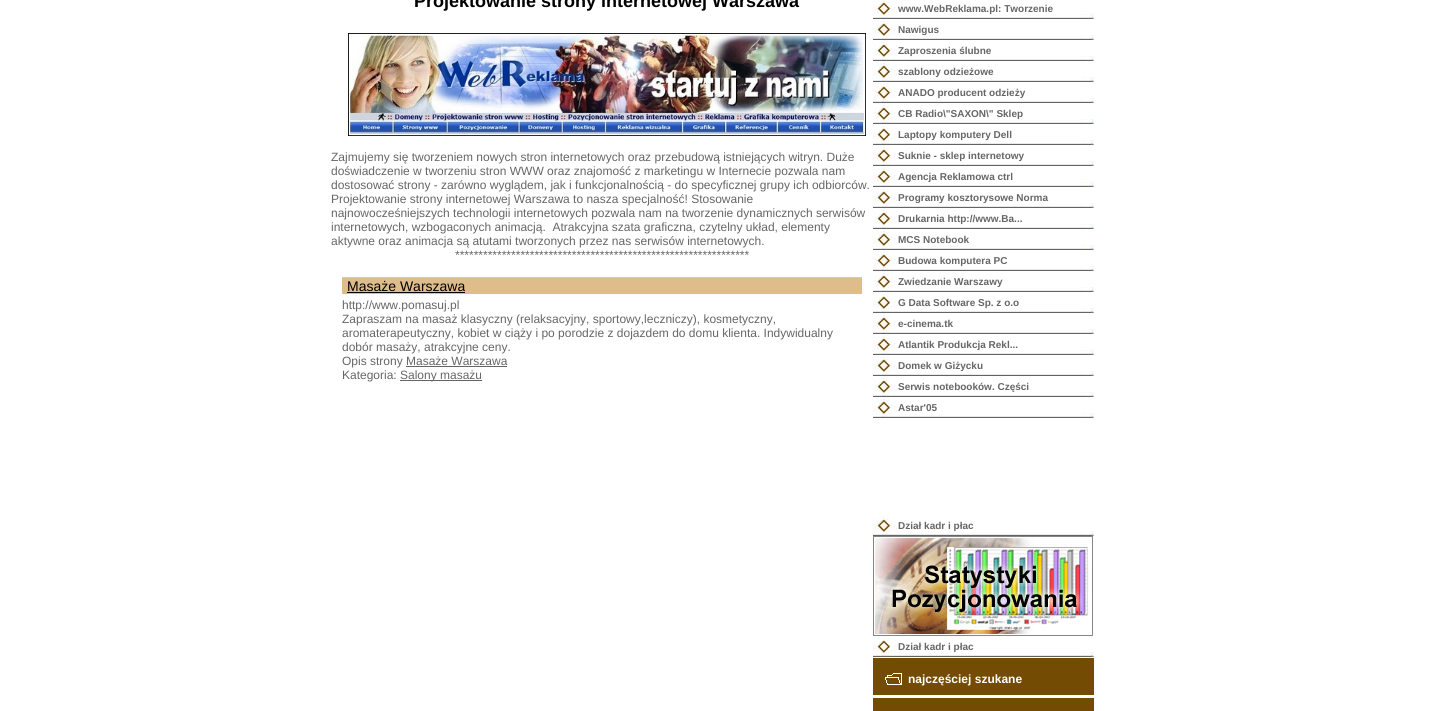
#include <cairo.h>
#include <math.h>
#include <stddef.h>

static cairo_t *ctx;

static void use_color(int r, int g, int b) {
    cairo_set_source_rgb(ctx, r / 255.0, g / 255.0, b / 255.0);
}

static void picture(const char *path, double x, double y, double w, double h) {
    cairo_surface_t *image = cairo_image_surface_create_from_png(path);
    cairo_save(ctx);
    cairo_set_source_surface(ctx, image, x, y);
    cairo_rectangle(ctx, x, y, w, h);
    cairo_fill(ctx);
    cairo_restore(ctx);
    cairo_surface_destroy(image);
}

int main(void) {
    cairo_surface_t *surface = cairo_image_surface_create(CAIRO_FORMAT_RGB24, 1432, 711);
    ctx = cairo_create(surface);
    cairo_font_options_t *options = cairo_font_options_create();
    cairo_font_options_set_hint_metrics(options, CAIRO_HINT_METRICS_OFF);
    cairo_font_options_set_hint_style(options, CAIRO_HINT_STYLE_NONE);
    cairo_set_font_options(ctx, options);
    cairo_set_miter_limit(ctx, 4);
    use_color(255, 255, 255);
    cairo_paint(ctx);
    cairo_select_font_face(ctx, "Liberation Sans", CAIRO_FONT_SLANT_NORMAL, CAIRO_FONT_WEIGHT_BOLD);
    cairo_set_font_size(ctx, 18);
    use_color(0, 0, 0);
    cairo_move_to(ctx, 414, 7);
    cairo_show_text(ctx, "Projektowanie strony internetowej Warszawa");
    picture("img1.png", 348, 33, 518, 103);
    cairo_select_font_face(ctx, "Liberation Sans", CAIRO_FONT_SLANT_NORMAL, CAIRO_FONT_WEIGHT_NORMAL);
    cairo_set_font_size(ctx, 12);
    use_color(102, 102, 102);
    cairo_move_to(ctx, 331, 161);
    cairo_show_text(ctx, "Zajmujemy się tworzeniem nowych stron internetowych oraz przebudową istniejących witryn. Duże");
    cairo_move_to(ctx, 331, 175);
    cairo_show_text(ctx, "doświadczenie w tworzeniu stron WWW oraz znajomość z marketingu w Internecie pozwala nam");
    cairo_move_to(ctx, 331, 189);
    cairo_show_text(ctx, "dostosować strony - zarówno wyglądem, jak i funkcjonalnością - do specyficznej grupy ich odbiorców.");
    cairo_move_to(ctx, 331, 203);
    cairo_show_text(ctx, "Projektowanie strony internetowej Warszawa to nasza specjalność! Stosowanie");
    cairo_move_to(ctx, 331, 217);
    cairo_show_text(ctx, "najnowocześniejszych technologii internetowych pozwala nam na tworzenie dynamicznych serwisów");
    cairo_move_to(ctx, 331, 231);
    cairo_show_text(ctx, "internetowych, wzbogaconych animacją.  Atrakcyjna szata graficzna, czytelny układ, elementy");
    cairo_move_to(ctx, 331, 245);
    cairo_show_text(ctx, "aktywne oraz animacja są atutami tworzonych przez nas serwisów internetowych.");
    cairo_move_to(ctx, 455, 259);
    cairo_show_text(ctx, "***************************************************************");
    use_color(223, 188, 139);
    cairo_rectangle(ctx, 342, 278, 520, 16);
    cairo_fill(ctx);
    use_color(204, 204, 204);
    cairo_rectangle(ctx, 342, 277, 520, 1);
    cairo_fill(ctx);
    cairo_set_font_size(ctx, 14);
    use_color(0, 0, 0);
    cairo_move_to(ctx, 347, 291);
    cairo_show_text(ctx, "Masaże Warszawa");
    cairo_rectangle(ctx, 347, 292, 118, 1);
    cairo_fill(ctx);
    cairo_set_font_size(ctx, 12);
    use_color(102, 102, 102);
    cairo_move_to(ctx, 342, 309);
    cairo_show_text(ctx, "http://www.pomasuj.pl");
    cairo_move_to(ctx, 342, 323);
    cairo_show_text(ctx, "Zapraszam na masaż klasyczny (relaksacyjny, sportowy,leczniczy), kosmetyczny,");
    cairo_move_to(ctx, 342, 337);
    cairo_show_text(ctx, "aromaterapeutyczny, kobiet w ciąży i po porodzie z dojazdem do domu klienta. Indywidualny");
    cairo_move_to(ctx, 342, 351);
    cairo_show_text(ctx, "dobór masaży, atrakcyjne ceny.");
    cairo_move_to(ctx, 342, 365);
    cairo_show_text(ctx, "Opis strony");
    cairo_move_to(ctx, 406, 365);
    cairo_show_text(ctx, "Masaże Warszawa");
    use_color(101, 101, 105);
    cairo_rectangle(ctx, 406, 366, 101, 1);
    cairo_fill(ctx);
    use_color(102, 102, 102);
    cairo_move_to(ctx, 342, 379);
    cairo_show_text(ctx, "Kategoria:");
    use_color(101, 101, 105);
    cairo_rectangle(ctx, 400, 380, 82, 1);
    cairo_fill(ctx);
    use_color(102, 102, 102);
    cairo_move_to(ctx, 400, 379);
    cairo_show_text(ctx, "Salony masażu");
    picture("img2.png", 873, 0, 221, 19);
    cairo_select_font_face(ctx, "Liberation Sans", CAIRO_FONT_SLANT_NORMAL, CAIRO_FONT_WEIGHT_BOLD);
    cairo_set_font_size(ctx, 10);
    cairo_move_to(ctx, 898, 12);
    cairo_show_text(ctx, "www.WebReklama.pl: Tworzenie");
    picture("img3.png", 873, 19, 221, 21);
    cairo_move_to(ctx, 898, 33);
    cairo_show_text(ctx, "Nawigus");
    picture("img3.png", 873, 40, 221, 21);
    cairo_move_to(ctx, 898, 54);
    cairo_show_text(ctx, "Zaproszenia ślubne");
    picture("img3.png", 873, 61, 221, 21);
    cairo_move_to(ctx, 898, 75);
    cairo_show_text(ctx, "szablony odzieżowe");
    picture("img3.png", 873, 82, 221, 21);
    cairo_move_to(ctx, 898, 96);
    cairo_show_text(ctx, "ANADO producent odzieży");
    picture("img3.png", 873, 103, 221, 21);
    cairo_move_to(ctx, 898, 117);
    cairo_show_text(ctx, "CB Radio\\\"SAXON\\\" Sklep");
    picture("img3.png", 873, 124, 221, 21);
    cairo_move_to(ctx, 898, 138);
    cairo_show_text(ctx, "Laptopy komputery Dell");
    picture("img3.png", 873, 145, 221, 21);
    cairo_move_to(ctx, 898, 159);
    cairo_show_text(ctx, "Suknie - sklep internetowy");
    picture("img3.png", 873, 166, 221, 21);
    cairo_move_to(ctx, 898, 180);
    cairo_show_text(ctx, "Agencja Reklamowa ctrl");
    picture("img3.png", 873, 187, 221, 21);
    cairo_move_to(ctx, 898, 201);
    cairo_show_text(ctx, "Programy kosztorysowe Norma");
    picture("img3.png", 873, 208, 221, 21);
    cairo_move_to(ctx, 898, 222);
    cairo_show_text(ctx, "Drukarnia http://www.Ba...");
    picture("img3.png", 873, 229, 221, 21);
    cairo_move_to(ctx, 898, 243);
    cairo_show_text(ctx, "MCS Notebook");
    picture("img3.png", 873, 250, 221, 21);
    cairo_move_to(ctx, 898, 264);
    cairo_show_text(ctx, "Budowa komputera PC");
    picture("img3.png", 873, 271, 221, 21);
    cairo_move_to(ctx, 898, 285);
    cairo_show_text(ctx, "Zwiedzanie Warszawy");
    picture("img3.png", 873, 292, 221, 21);
    cairo_move_to(ctx, 898, 306);
    cairo_show_text(ctx, "G Data Software Sp. z o.o");
    picture("img3.png", 873, 313, 221, 21);
    cairo_move_to(ctx, 898, 327);
    cairo_show_text(ctx, "e-cinema.tk");
    picture("img3.png", 873, 334, 221, 21);
    cairo_move_to(ctx, 898, 348);
    cairo_show_text(ctx, "Atlantik Produkcja Rekl...");
    picture("img3.png", 873, 355, 221, 21);
    cairo_move_to(ctx, 898, 369);
    cairo_show_text(ctx, "Domek w Giżycku");
    picture("img3.png", 873, 376, 221, 21);
    cairo_move_to(ctx, 898, 390);
    cairo_show_text(ctx, "Serwis notebooków. Części");
    picture("img3.png", 873, 397, 221, 21);
    cairo_move_to(ctx, 898, 411);
    cairo_show_text(ctx, "Astar'05");
    picture("img3.png", 873, 515, 221, 21);
    cairo_move_to(ctx, 898, 529);
    cairo_show_text(ctx, "Dział kadr i płac");
    picture("img4.png", 873, 536, 220, 100);
    picture("img3.png", 873, 636, 221, 21);
    cairo_move_to(ctx, 898, 650);
    cairo_show_text(ctx, "Dział kadr i płac");
    use_color(116, 75, 3);
    cairo_rectangle(ctx, 873, 658, 221, 37);
    cairo_fill(ctx);
    picture("img5.png", 885, 673, 17, 12);
    cairo_set_font_size(ctx, 12);
    use_color(255, 255, 255);
    cairo_move_to(ctx, 908, 683);
    cairo_show_text(ctx, "najczęściej szukane");
    use_color(116, 75, 3);
    cairo_rectangle(ctx, 873, 698, 221, 13);
    cairo_fill(ctx);
    cairo_surface_write_to_png(surface, "result.png");
    cairo_font_options_destroy(options);
    cairo_destroy(ctx);
    cairo_surface_destroy(surface);
    return 0;
}
